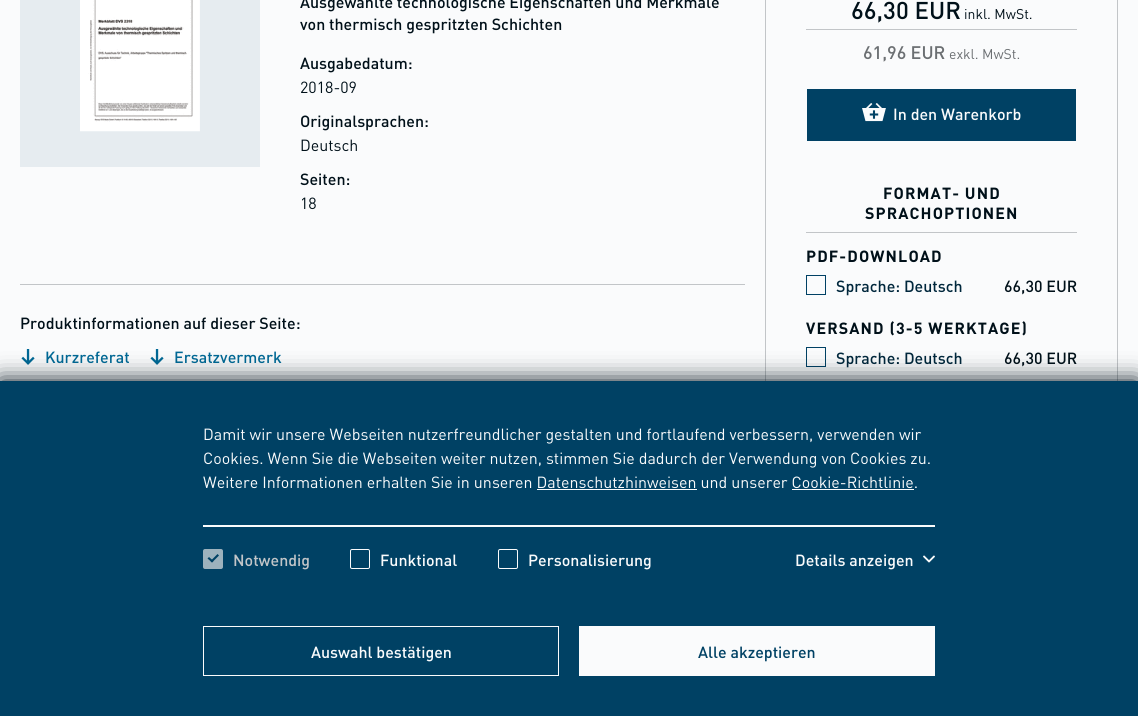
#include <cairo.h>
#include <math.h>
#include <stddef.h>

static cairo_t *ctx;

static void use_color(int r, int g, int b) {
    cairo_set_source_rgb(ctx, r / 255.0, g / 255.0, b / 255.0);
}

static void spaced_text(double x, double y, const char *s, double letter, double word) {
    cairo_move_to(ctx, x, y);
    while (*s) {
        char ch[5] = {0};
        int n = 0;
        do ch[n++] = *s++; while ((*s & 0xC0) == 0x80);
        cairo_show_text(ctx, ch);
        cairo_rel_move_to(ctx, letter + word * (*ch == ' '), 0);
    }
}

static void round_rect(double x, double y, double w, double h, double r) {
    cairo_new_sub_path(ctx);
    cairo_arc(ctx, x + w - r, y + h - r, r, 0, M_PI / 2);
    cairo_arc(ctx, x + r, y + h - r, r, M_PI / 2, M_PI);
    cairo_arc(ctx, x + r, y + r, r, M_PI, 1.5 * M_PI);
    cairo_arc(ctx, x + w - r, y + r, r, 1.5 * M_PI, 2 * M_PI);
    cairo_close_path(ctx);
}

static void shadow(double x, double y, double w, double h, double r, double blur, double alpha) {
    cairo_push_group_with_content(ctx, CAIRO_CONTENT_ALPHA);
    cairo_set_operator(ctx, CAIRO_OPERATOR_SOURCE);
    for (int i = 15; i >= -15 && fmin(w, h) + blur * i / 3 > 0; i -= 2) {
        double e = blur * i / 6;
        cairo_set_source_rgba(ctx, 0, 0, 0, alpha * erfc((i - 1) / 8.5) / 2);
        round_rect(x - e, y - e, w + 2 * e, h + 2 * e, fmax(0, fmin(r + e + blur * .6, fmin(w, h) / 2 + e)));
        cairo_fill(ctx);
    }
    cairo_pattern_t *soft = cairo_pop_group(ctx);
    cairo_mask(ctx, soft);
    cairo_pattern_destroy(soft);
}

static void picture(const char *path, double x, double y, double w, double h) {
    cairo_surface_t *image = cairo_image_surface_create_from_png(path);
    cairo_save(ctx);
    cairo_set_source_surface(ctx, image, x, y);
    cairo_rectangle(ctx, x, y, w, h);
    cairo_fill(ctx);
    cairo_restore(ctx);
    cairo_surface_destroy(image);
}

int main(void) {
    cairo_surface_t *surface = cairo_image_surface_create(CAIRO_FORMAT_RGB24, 1138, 716);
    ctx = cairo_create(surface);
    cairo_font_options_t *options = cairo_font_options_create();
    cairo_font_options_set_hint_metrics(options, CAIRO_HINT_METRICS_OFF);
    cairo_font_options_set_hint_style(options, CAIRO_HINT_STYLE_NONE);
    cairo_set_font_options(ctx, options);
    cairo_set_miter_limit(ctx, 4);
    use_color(250, 251, 252);
    cairo_paint(ctx);
    use_color(230, 236, 240);
    cairo_rectangle(ctx, 20, 0, 240, 167);
    cairo_fill(ctx);
    picture("img1.png", 80, 0, 120, 132);
    cairo_select_font_face(ctx, "DIN Medium", CAIRO_FONT_SLANT_NORMAL, CAIRO_FONT_WEIGHT_NORMAL);
    cairo_set_font_size(ctx, 16);
    use_color(0, 16, 25);
    cairo_move_to(ctx, 300, 8);
    cairo_show_text(ctx, "Ausgewählte technologische Eigenschaften und Merkmale");
    cairo_move_to(ctx, 300, 30);
    cairo_show_text(ctx, "von thermisch gespritzten Schichten");
    cairo_move_to(ctx, 300, 69);
    cairo_show_text(ctx, "Ausgabedatum:");
    cairo_select_font_face(ctx, "DIN", CAIRO_FONT_SLANT_NORMAL, CAIRO_FONT_WEIGHT_NORMAL);
    cairo_move_to(ctx, 300, 93);
    cairo_show_text(ctx, "2018-09");
    cairo_select_font_face(ctx, "DIN Medium", CAIRO_FONT_SLANT_NORMAL, CAIRO_FONT_WEIGHT_NORMAL);
    cairo_move_to(ctx, 300, 127);
    cairo_show_text(ctx, "Originalsprachen:");
    cairo_select_font_face(ctx, "DIN", CAIRO_FONT_SLANT_NORMAL, CAIRO_FONT_WEIGHT_NORMAL);
    cairo_move_to(ctx, 300, 151);
    cairo_show_text(ctx, "Deutsch");
    cairo_select_font_face(ctx, "DIN Medium", CAIRO_FONT_SLANT_NORMAL, CAIRO_FONT_WEIGHT_NORMAL);
    cairo_move_to(ctx, 300, 185);
    cairo_show_text(ctx, "Seiten:");
    cairo_select_font_face(ctx, "DIN", CAIRO_FONT_SLANT_NORMAL, CAIRO_FONT_WEIGHT_NORMAL);
    cairo_move_to(ctx, 300, 209);
    cairo_show_text(ctx, "18");
    cairo_rectangle(ctx, 765.5, -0.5, 352, 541);
    use_color(194, 197, 200);
    cairo_set_line_width(ctx, 1);
    cairo_stroke(ctx);
    cairo_select_font_face(ctx, "DIN Medium", CAIRO_FONT_SLANT_NORMAL, CAIRO_FONT_WEIGHT_NORMAL);
    cairo_set_font_size(ctx, 24);
    use_color(0, 16, 25);
    cairo_move_to(ctx, 851, 19);
    cairo_show_text(ctx, "66,30 EUR");
    cairo_select_font_face(ctx, "DIN", CAIRO_FONT_SLANT_NORMAL, CAIRO_FONT_WEIGHT_NORMAL);
    cairo_set_font_size(ctx, 14);
    cairo_move_to(ctx, 964, 19);
    cairo_show_text(ctx, "inkl. MwSt.");
    use_color(194, 197, 200);
    cairo_rectangle(ctx, 806, 29, 271, 1);
    cairo_fill(ctx);
    cairo_select_font_face(ctx, "DIN Medium", CAIRO_FONT_SLANT_NORMAL, CAIRO_FONT_WEIGHT_NORMAL);
    cairo_set_font_size(ctx, 18);
    use_color(107, 111, 114);
    cairo_move_to(ctx, 863, 59);
    cairo_show_text(ctx, "61,96 EUR");
    cairo_select_font_face(ctx, "DIN", CAIRO_FONT_SLANT_NORMAL, CAIRO_FONT_WEIGHT_NORMAL);
    cairo_set_font_size(ctx, 14);
    cairo_move_to(ctx, 949, 59);
    cairo_show_text(ctx, "exkl. MwSt.");
    use_color(0, 65, 100);
    cairo_rectangle(ctx, 807, 89, 269, 52);
    cairo_fill(ctx);
    picture("img2.png", 862, 103, 24, 19);
    cairo_select_font_face(ctx, "DIN Medium", CAIRO_FONT_SLANT_NORMAL, CAIRO_FONT_WEIGHT_NORMAL);
    cairo_set_font_size(ctx, 16);
    use_color(250, 251, 252);
    cairo_move_to(ctx, 893, 120);
    cairo_show_text(ctx, "In den Warenkorb");
    use_color(194, 197, 200);
    cairo_rectangle(ctx, 806, 232, 271, 1);
    cairo_fill(ctx);
    cairo_select_font_face(ctx, "DIN", CAIRO_FONT_SLANT_NORMAL, CAIRO_FONT_WEIGHT_BOLD);
    use_color(0, 16, 25);
    spaced_text(883, 199, "FORMAT- UND", 1.1, 0);
    spaced_text(865, 219, "SPRACHOPTIONEN", 1.1, 0);
    spaced_text(806, 262, "PDF-DOWNLOAD", 1.1, 0);
    cairo_rectangle(ctx, 806.5, 275.5, 19, 19);
    use_color(0, 65, 100);
    cairo_stroke(ctx);
    cairo_select_font_face(ctx, "DIN Medium", CAIRO_FONT_SLANT_NORMAL, CAIRO_FONT_WEIGHT_NORMAL);
    use_color(0, 39, 60);
    cairo_move_to(ctx, 836, 292);
    cairo_show_text(ctx, "Sprache: Deutsch");
    use_color(0, 16, 25);
    cairo_move_to(ctx, 1004, 292);
    cairo_show_text(ctx, "66,30 EUR");
    cairo_select_font_face(ctx, "DIN", CAIRO_FONT_SLANT_NORMAL, CAIRO_FONT_WEIGHT_BOLD);
    spaced_text(806, 334, "VERSAND (3-5 WERKTAGE)", 1.1, 0);
    cairo_rectangle(ctx, 806.5, 347.5, 19, 19);
    use_color(0, 65, 100);
    cairo_stroke(ctx);
    cairo_select_font_face(ctx, "DIN Medium", CAIRO_FONT_SLANT_NORMAL, CAIRO_FONT_WEIGHT_NORMAL);
    use_color(0, 39, 60);
    cairo_move_to(ctx, 836, 364);
    cairo_show_text(ctx, "Sprache: Deutsch");
    use_color(0, 16, 25);
    cairo_move_to(ctx, 1004, 364);
    cairo_show_text(ctx, "66,30 EUR");
    use_color(194, 197, 200);
    cairo_rectangle(ctx, 20, 284, 725, 1);
    cairo_fill(ctx);
    use_color(0, 16, 25);
    cairo_move_to(ctx, 20, 329);
    cairo_show_text(ctx, "Produktinformationen auf dieser Seite:");
    picture("img3.png", 21, 349, 14, 16);
    use_color(0, 105, 150);
    cairo_move_to(ctx, 45, 363);
    cairo_show_text(ctx, "Kurzreferat");
    picture("img3.png", 150, 349, 14, 16);
    cairo_move_to(ctx, 174, 363);
    cairo_show_text(ctx, "Ersatzvermerk");
    use_color(0, 16, 25);
    shadow(0, 381, 1138, 335, 0, 12, 1);
    use_color(0, 65, 100);
    cairo_rectangle(ctx, 0, 381, 1138, 335);
    cairo_fill(ctx);
    cairo_select_font_face(ctx, "DIN", CAIRO_FONT_SLANT_NORMAL, CAIRO_FONT_WEIGHT_NORMAL);
    use_color(250, 251, 252);
    cairo_move_to(ctx, 203, 440);
    cairo_show_text(ctx, "Damit wir unsere Webseiten nutzerfreundlicher gestalten und fortlaufend verbessern, verwenden wir");
    cairo_move_to(ctx, 203, 464);
    cairo_show_text(ctx, "Cookies. Wenn Sie die Webseiten weiter nutzen, stimmen Sie dadurch der Verwendung von Cookies zu.");
    cairo_move_to(ctx, 203, 488);
    cairo_show_text(ctx, "Weitere Informationen erhalten Sie in unseren Datenschutzhinweisen und unserer Cookie-Richtlinie.");
    cairo_rectangle(ctx, 537, 489, 160, 1);
    cairo_fill(ctx);
    cairo_rectangle(ctx, 792, 489, 122, 1);
    cairo_fill(ctx);
    cairo_rectangle(ctx, 203, 525, 732, 2);
    cairo_fill(ctx);
    use_color(157, 178, 189);
    round_rect(203, 549, 20, 20, 2);
    cairo_fill(ctx);
    use_color(0, 65, 100);
    cairo_new_path(ctx);
    cairo_move_to(ctx, 217.5, 554);
    cairo_line_to(ctx, 219, 555.5);
    cairo_line_to(ctx, 212, 562.5);
    cairo_line_to(ctx, 210.5, 561);
    cairo_close_path(ctx);
    cairo_fill(ctx);
    cairo_new_path(ctx);
    cairo_move_to(ctx, 209, 557);
    cairo_line_to(ctx, 213.5, 561);
    cairo_line_to(ctx, 212, 562.5);
    cairo_line_to(ctx, 207.5, 558.5);
    cairo_close_path(ctx);
    cairo_fill(ctx);
    cairo_select_font_face(ctx, "DIN Medium", CAIRO_FONT_SLANT_NORMAL, CAIRO_FONT_WEIGHT_NORMAL);
    use_color(194, 197, 200);
    cairo_move_to(ctx, 233, 566);
    cairo_show_text(ctx, "Notwendig");
    round_rect(350.5, 549.5, 19, 19, 1.5);
    use_color(250, 251, 252);
    cairo_stroke(ctx);
    cairo_move_to(ctx, 380, 566);
    cairo_show_text(ctx, "Funktional");
    round_rect(498.5, 549.5, 19, 19, 1.5);
    cairo_stroke(ctx);
    cairo_move_to(ctx, 528, 566);
    cairo_show_text(ctx, "Personalisierung");
    cairo_move_to(ctx, 795, 566);
    cairo_show_text(ctx, "Details anzeigen");
    picture("img4.png", 923, 555, 12, 8);
    cairo_rectangle(ctx, 203.5, 626.5, 355, 49);
    cairo_stroke(ctx);
    cairo_move_to(ctx, 311, 658);
    cairo_show_text(ctx, "Auswahl bestätigen");
    cairo_rectangle(ctx, 579, 626, 356, 50);
    cairo_fill(ctx);
    use_color(0, 65, 100);
    cairo_move_to(ctx, 698, 658);
    cairo_show_text(ctx, "Alle akzeptieren");
    cairo_surface_write_to_png(surface, "result.png");
    cairo_font_options_destroy(options);
    cairo_destroy(ctx);
    cairo_surface_destroy(surface);
    return 0;
}
